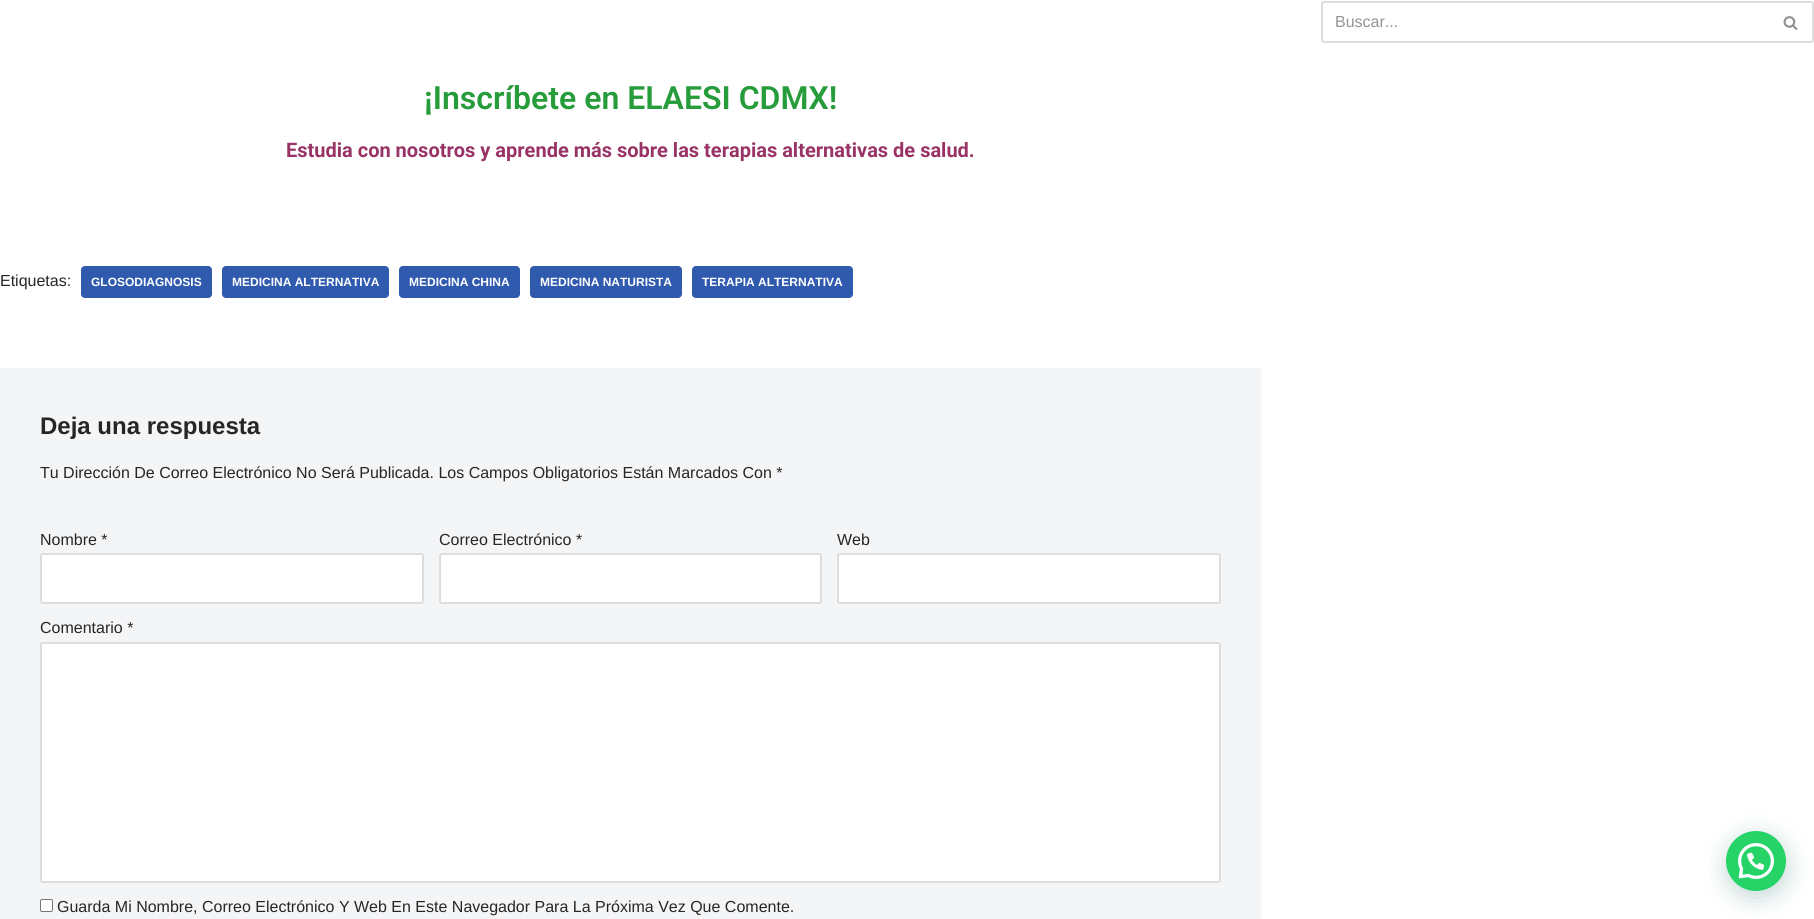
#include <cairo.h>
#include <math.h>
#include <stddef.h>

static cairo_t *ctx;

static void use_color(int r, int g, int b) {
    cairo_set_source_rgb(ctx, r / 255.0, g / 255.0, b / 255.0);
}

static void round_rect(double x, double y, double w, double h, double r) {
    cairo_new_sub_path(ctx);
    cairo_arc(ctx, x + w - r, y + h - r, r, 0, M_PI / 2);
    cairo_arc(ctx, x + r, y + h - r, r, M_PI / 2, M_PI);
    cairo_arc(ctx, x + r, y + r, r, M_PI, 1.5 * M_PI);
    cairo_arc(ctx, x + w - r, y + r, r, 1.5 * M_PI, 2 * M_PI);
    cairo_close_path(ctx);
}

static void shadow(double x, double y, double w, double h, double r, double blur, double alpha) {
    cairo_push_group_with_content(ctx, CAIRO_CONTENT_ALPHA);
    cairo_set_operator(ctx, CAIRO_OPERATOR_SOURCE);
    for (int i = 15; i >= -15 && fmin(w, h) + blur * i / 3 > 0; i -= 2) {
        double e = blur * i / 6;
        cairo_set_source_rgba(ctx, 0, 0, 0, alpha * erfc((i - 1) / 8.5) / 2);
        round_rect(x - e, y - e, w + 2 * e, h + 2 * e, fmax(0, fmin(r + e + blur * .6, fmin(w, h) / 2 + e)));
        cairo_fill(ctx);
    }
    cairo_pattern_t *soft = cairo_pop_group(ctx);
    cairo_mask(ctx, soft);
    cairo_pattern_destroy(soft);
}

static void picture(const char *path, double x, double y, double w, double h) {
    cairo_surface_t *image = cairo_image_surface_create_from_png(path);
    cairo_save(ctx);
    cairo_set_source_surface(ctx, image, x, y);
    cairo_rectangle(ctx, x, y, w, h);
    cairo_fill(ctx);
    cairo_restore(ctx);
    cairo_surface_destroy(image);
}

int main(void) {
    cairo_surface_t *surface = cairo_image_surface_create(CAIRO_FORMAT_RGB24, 1814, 919);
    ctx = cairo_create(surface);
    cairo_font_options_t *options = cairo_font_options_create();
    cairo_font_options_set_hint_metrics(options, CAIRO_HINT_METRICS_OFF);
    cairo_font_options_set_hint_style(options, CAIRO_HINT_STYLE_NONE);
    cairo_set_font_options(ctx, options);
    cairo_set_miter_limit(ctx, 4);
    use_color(255, 255, 255);
    cairo_paint(ctx);
    use_color(221, 221, 221);
    cairo_set_fill_rule(ctx, CAIRO_FILL_RULE_EVEN_ODD);
    cairo_new_path(ctx);
    cairo_move_to(ctx, 1324, 1);
    cairo_line_to(ctx, 1769, 1);
    cairo_line_to(ctx, 1769, 43);
    cairo_line_to(ctx, 1324, 43);
    cairo_curve_to(ctx, 1322, 43, 1321, 42, 1321, 40);
    cairo_line_to(ctx, 1321, 4);
    cairo_curve_to(ctx, 1321, 2, 1322, 1, 1324, 1);
    cairo_close_path(ctx);
    cairo_move_to(ctx, 1324, 3);
    cairo_line_to(ctx, 1769, 3);
    cairo_line_to(ctx, 1769, 41);
    cairo_line_to(ctx, 1324, 41);
    cairo_line_to(ctx, 1323, 40);
    cairo_line_to(ctx, 1323, 4);
    cairo_close_path(ctx);
    cairo_fill(ctx);
    cairo_select_font_face(ctx, "Liberation Sans", CAIRO_FONT_SLANT_NORMAL, CAIRO_FONT_WEIGHT_NORMAL);
    cairo_set_font_size(ctx, 16);
    use_color(147, 147, 147);
    cairo_move_to(ctx, 1335, 27);
    cairo_show_text(ctx, "Buscar...");
    use_color(221, 221, 221);
    cairo_new_path(ctx);
    cairo_move_to(ctx, 1769, 1);
    cairo_line_to(ctx, 1811, 1);
    cairo_curve_to(ctx, 1813, 1, 1814, 2, 1814, 4);
    cairo_line_to(ctx, 1814, 40);
    cairo_curve_to(ctx, 1814, 42, 1813, 43, 1811, 43);
    cairo_line_to(ctx, 1769, 43);
    cairo_close_path(ctx);
    cairo_move_to(ctx, 1769, 3);
    cairo_line_to(ctx, 1811, 3);
    cairo_curve_to(ctx, 1812, 3, 1812, 3, 1812, 4);
    cairo_line_to(ctx, 1812, 40);
    cairo_curve_to(ctx, 1812, 41, 1812, 41, 1811, 41);
    cairo_line_to(ctx, 1769, 41);
    cairo_close_path(ctx);
    cairo_fill(ctx);
    picture("img1.png", 1783, 16, 15, 14);
    cairo_select_font_face(ctx, "Roboto SemiBold", CAIRO_FONT_SLANT_NORMAL, CAIRO_FONT_WEIGHT_NORMAL);
    cairo_set_font_size(ctx, 32);
    use_color(38, 156, 59);
    cairo_move_to(ctx, 424, 109);
    cairo_show_text(ctx, "¡Inscríbete en ELAESI CDMX!");
    cairo_select_font_face(ctx, "Roboto", CAIRO_FONT_SLANT_NORMAL, CAIRO_FONT_WEIGHT_BOLD);
    cairo_set_font_size(ctx, 20);
    use_color(153, 51, 102);
    cairo_move_to(ctx, 286, 157);
    cairo_show_text(ctx, "Estudia con nosotros y aprende más sobre las terapias alternativas de salud.");
    cairo_select_font_face(ctx, "Liberation Sans", CAIRO_FONT_SLANT_NORMAL, CAIRO_FONT_WEIGHT_NORMAL);
    cairo_set_font_size(ctx, 16);
    use_color(39, 38, 38);
    cairo_move_to(ctx, 0, 286);
    cairo_show_text(ctx, "Etiquetas:");
    use_color(47, 90, 174);
    round_rect(81, 266, 131, 32, 4);
    cairo_fill(ctx);
    cairo_select_font_face(ctx, "Liberation Sans", CAIRO_FONT_SLANT_NORMAL, CAIRO_FONT_WEIGHT_BOLD);
    cairo_set_font_size(ctx, 12);
    use_color(255, 255, 255);
    cairo_move_to(ctx, 91, 286);
    cairo_show_text(ctx, "GLOSODIAGNOSIS");
    use_color(47, 90, 174);
    round_rect(222, 266, 167, 32, 4);
    cairo_fill(ctx);
    use_color(255, 255, 255);
    cairo_move_to(ctx, 232, 286);
    cairo_show_text(ctx, "MEDICINA ALTERNATIVA");
    use_color(47, 90, 174);
    round_rect(399, 266, 121, 32, 4);
    cairo_fill(ctx);
    use_color(255, 255, 255);
    cairo_move_to(ctx, 409, 286);
    cairo_show_text(ctx, "MEDICINA CHINA");
    use_color(47, 90, 174);
    round_rect(530, 266, 152, 32, 4);
    cairo_fill(ctx);
    use_color(255, 255, 255);
    cairo_move_to(ctx, 540, 286);
    cairo_show_text(ctx, "MEDICINA NATURISTA");
    use_color(47, 90, 174);
    round_rect(692, 266, 161, 32, 4);
    cairo_fill(ctx);
    use_color(255, 255, 255);
    cairo_move_to(ctx, 702, 286);
    cairo_show_text(ctx, "TERAPIA ALTERNATIVA");
    use_color(244, 245, 247);
    cairo_rectangle(ctx, 0, 368, 1261, 551);
    cairo_fill(ctx);
    cairo_set_font_size(ctx, 24);
    use_color(39, 38, 38);
    cairo_move_to(ctx, 40, 434);
    cairo_show_text(ctx, "Deja una respuesta");
    cairo_select_font_face(ctx, "Liberation Sans", CAIRO_FONT_SLANT_NORMAL, CAIRO_FONT_WEIGHT_NORMAL);
    cairo_set_font_size(ctx, 16);
    cairo_move_to(ctx, 40, 478);
    cairo_show_text(ctx, "Tu Dirección De Correo Electrónico No Será Publicada. Los Campos Obligatorios Están Marcados Con *");
    cairo_move_to(ctx, 40, 545);
    cairo_show_text(ctx, "Nombre *");
    use_color(255, 255, 255);
    round_rect(41, 554, 382, 49, 2);
    cairo_fill_preserve(ctx);
    use_color(221, 221, 221);
    cairo_stroke(ctx);
    use_color(39, 38, 38);
    cairo_move_to(ctx, 439, 545);
    cairo_show_text(ctx, "Correo Electrónico *");
    use_color(255, 255, 255);
    round_rect(440, 554, 381, 49, 2);
    cairo_fill_preserve(ctx);
    use_color(221, 221, 221);
    cairo_stroke(ctx);
    use_color(39, 38, 38);
    cairo_move_to(ctx, 837, 545);
    cairo_show_text(ctx, "Web");
    use_color(255, 255, 255);
    round_rect(838, 554, 382, 49, 2);
    cairo_fill_preserve(ctx);
    use_color(221, 221, 221);
    cairo_stroke(ctx);
    use_color(39, 38, 38);
    cairo_move_to(ctx, 40, 633);
    cairo_show_text(ctx, "Comentario *");
    use_color(255, 255, 255);
    round_rect(41, 643, 1179, 239, 2);
    cairo_fill_preserve(ctx);
    use_color(221, 221, 221);
    cairo_stroke(ctx);
    use_color(255, 255, 255);
    round_rect(40.5, 899.5, 12, 12, 1.5);
    cairo_fill_preserve(ctx);
    use_color(118, 118, 118);
    cairo_set_line_width(ctx, 1);
    cairo_stroke(ctx);
    use_color(39, 38, 38);
    cairo_move_to(ctx, 57, 912);
    cairo_show_text(ctx, "Guarda Mi Nombre, Correo Electrónico Y Web En Este Navegador Para La Próxima Vez Que Comente.");
    use_color(7, 94, 84);
    shadow(1727, 837, 60, 60, 30, 12, 0.24);
    use_color(37, 211, 102);
    cairo_arc(ctx, 1756, 861, 30, 0, 2 * M_PI);
    cairo_fill(ctx);
    picture("img2.png", 1738, 843, 36, 36);
    cairo_surface_write_to_png(surface, "result.png");
    cairo_font_options_destroy(options);
    cairo_destroy(ctx);
    cairo_surface_destroy(surface);
    return 0;
}
